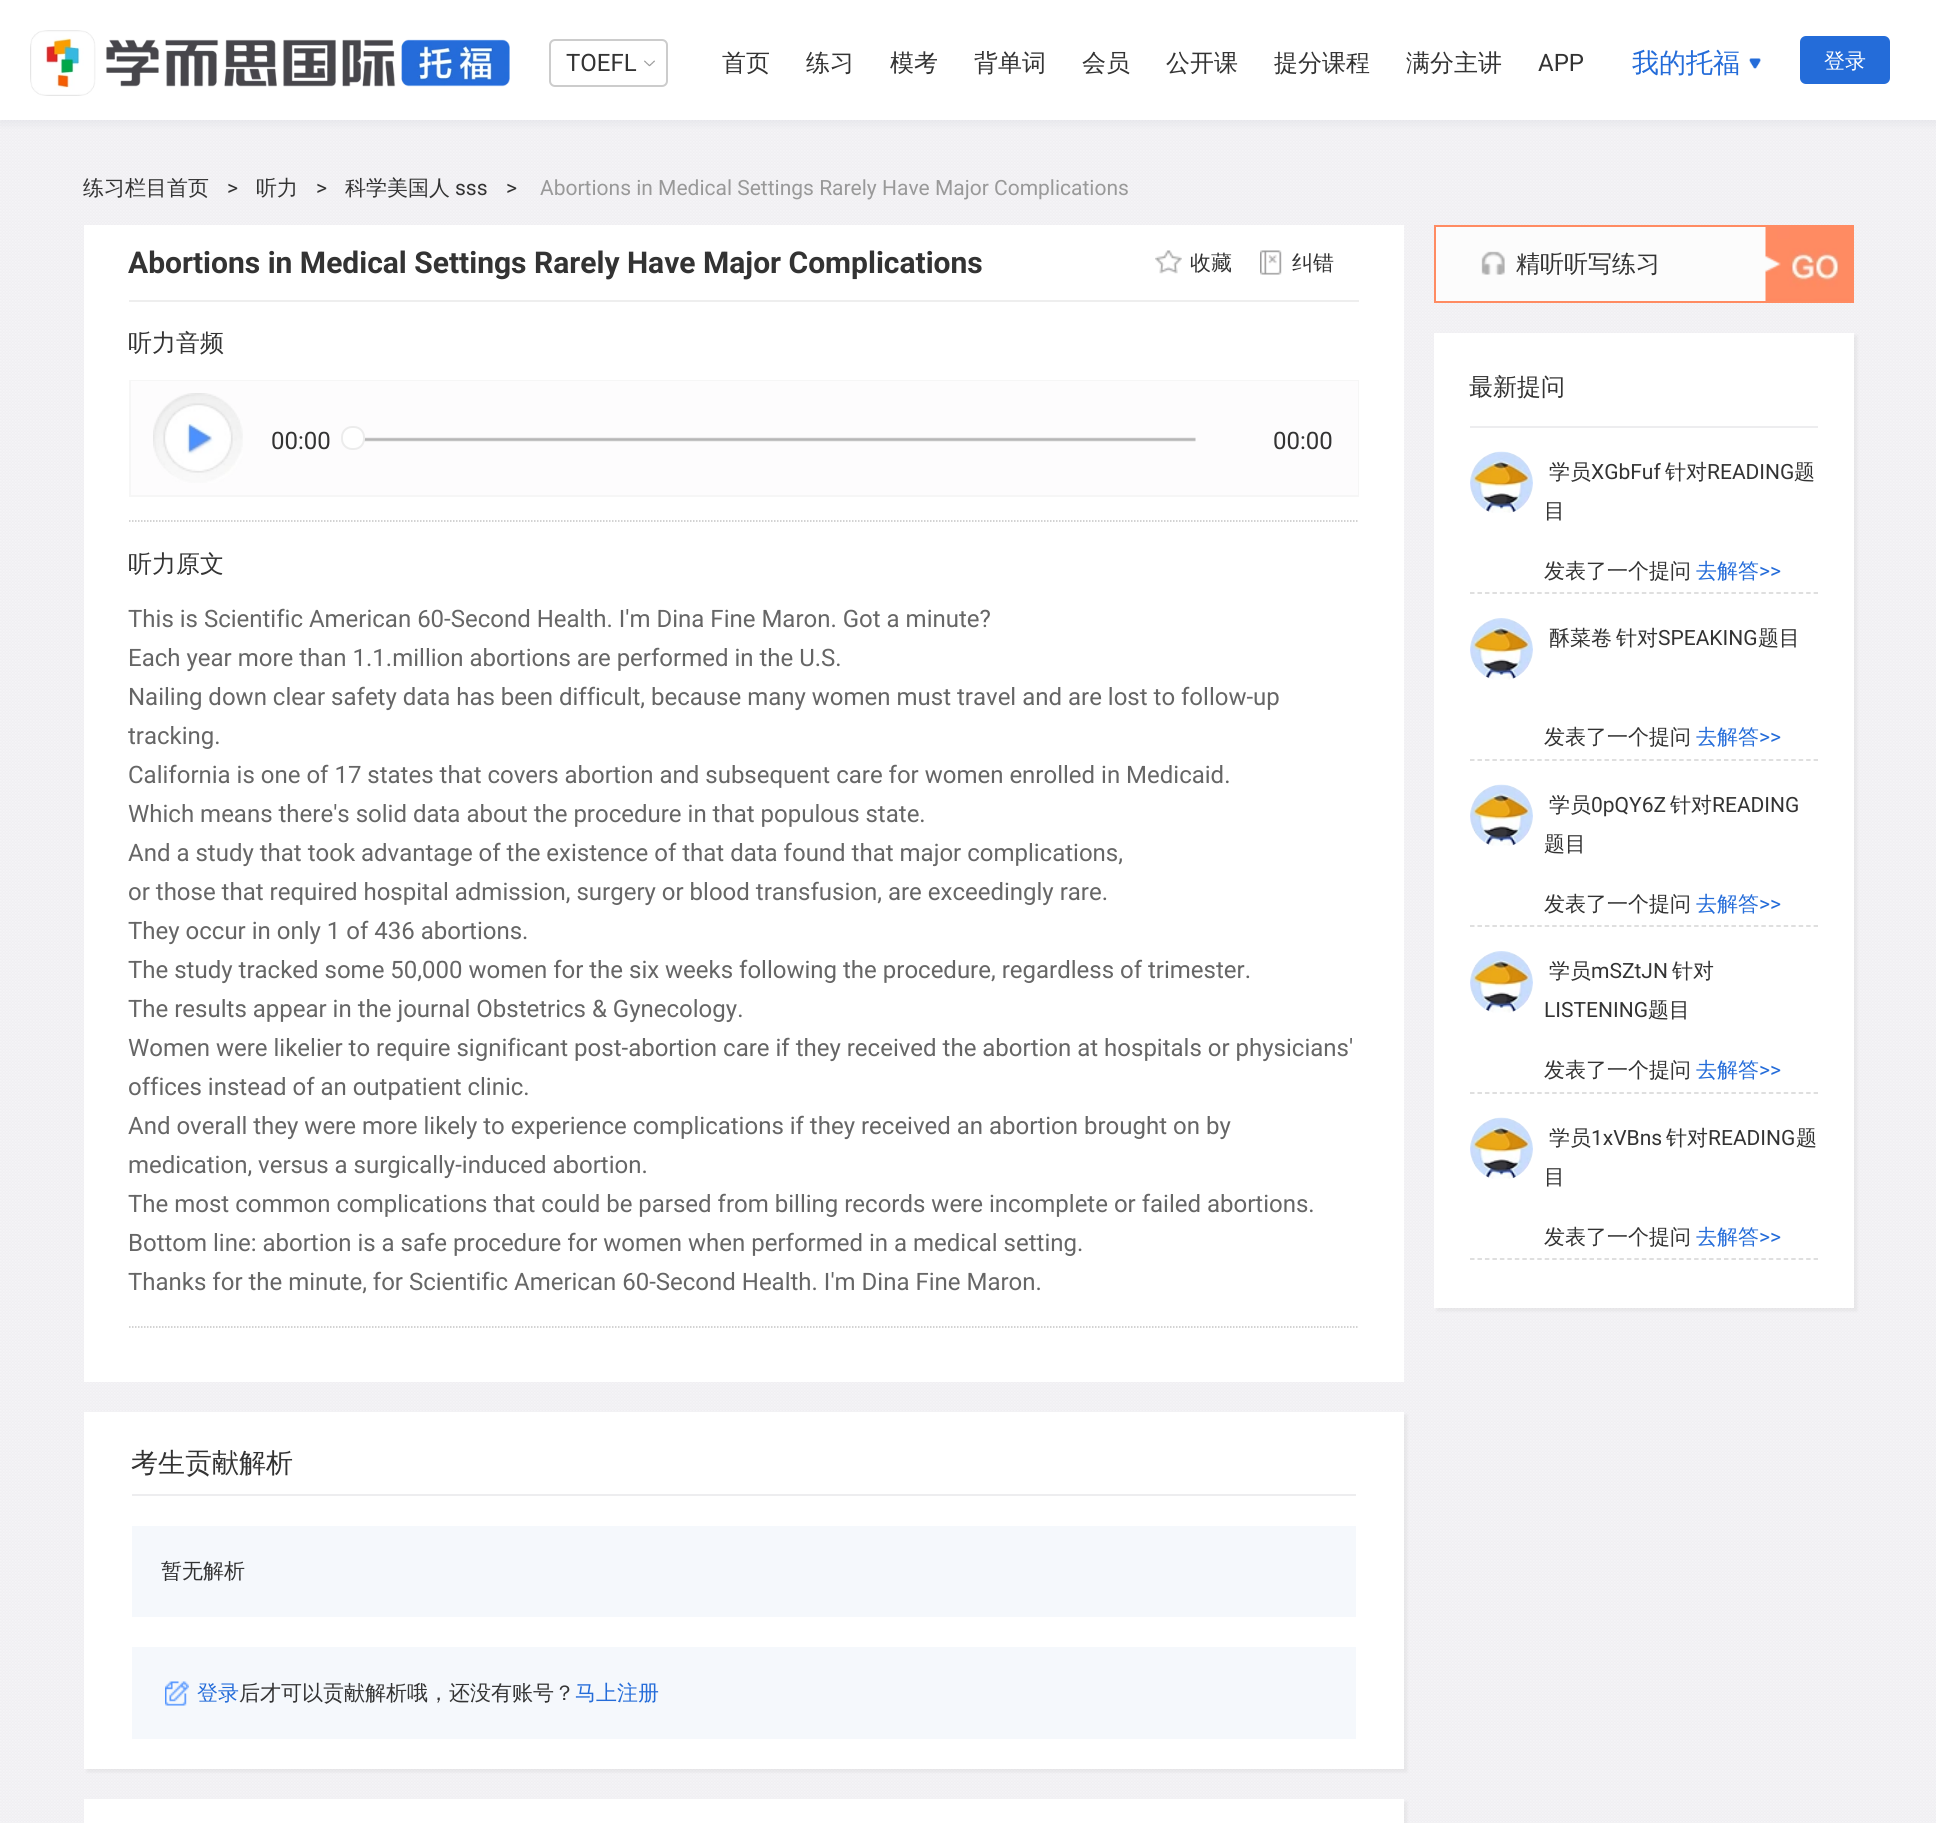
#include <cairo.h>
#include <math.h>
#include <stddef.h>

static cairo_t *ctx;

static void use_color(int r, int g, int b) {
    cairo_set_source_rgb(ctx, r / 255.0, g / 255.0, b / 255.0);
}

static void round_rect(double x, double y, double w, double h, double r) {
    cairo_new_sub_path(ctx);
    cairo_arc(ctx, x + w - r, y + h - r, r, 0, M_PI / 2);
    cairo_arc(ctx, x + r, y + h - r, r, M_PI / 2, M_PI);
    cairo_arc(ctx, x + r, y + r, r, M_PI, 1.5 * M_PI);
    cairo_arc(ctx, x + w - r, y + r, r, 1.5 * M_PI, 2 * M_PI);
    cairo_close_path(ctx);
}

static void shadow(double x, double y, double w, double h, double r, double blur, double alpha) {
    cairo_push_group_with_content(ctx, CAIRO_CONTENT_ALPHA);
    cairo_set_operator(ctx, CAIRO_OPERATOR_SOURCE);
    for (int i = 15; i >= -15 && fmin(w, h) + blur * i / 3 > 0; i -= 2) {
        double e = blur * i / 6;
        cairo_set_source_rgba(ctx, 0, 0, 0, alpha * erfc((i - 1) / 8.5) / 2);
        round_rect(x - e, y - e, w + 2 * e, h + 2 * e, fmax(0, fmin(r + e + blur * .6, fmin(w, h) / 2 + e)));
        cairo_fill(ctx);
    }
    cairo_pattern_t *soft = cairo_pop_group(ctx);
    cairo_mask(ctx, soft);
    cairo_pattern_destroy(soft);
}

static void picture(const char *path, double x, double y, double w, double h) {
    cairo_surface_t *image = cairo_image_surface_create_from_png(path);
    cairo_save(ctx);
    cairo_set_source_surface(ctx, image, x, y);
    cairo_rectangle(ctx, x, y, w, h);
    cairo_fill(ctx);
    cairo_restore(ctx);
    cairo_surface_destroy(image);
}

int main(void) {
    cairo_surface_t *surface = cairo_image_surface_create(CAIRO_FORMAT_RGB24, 1936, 1823);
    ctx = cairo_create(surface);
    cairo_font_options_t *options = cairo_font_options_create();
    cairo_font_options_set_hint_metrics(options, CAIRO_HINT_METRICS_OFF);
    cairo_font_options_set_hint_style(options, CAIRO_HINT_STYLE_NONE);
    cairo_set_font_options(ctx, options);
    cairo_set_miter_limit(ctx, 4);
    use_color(255, 255, 255);
    cairo_paint(ctx);
    picture("img1.png", 0, 120, 1936, 1703);
    use_color(57, 74, 103);
    shadow(0, 3, 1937, 120, 0, 4.5, 0.08);
    use_color(255, 255, 255);
    cairo_rectangle(ctx, 0, 0, 1936, 120);
    cairo_fill(ctx);
    picture("img2.png", 30, 30, 480, 66);
    round_rect(550, 40, 117, 46, 5);
    use_color(204, 204, 204);
    cairo_stroke(ctx);
    cairo_select_font_face(ctx, "Roboto", CAIRO_FONT_SLANT_NORMAL, CAIRO_FONT_WEIGHT_NORMAL);
    cairo_set_font_size(ctx, 24);
    use_color(51, 51, 51);
    cairo_move_to(ctx, 566, 71);
    cairo_show_text(ctx, "TOEFL");
    picture("img3.png", 644, 60, 11, 7);
    cairo_select_font_face(ctx, "WenQuanYi Zen Hei Medium", CAIRO_FONT_SLANT_NORMAL, CAIRO_FONT_WEIGHT_NORMAL);
    cairo_move_to(ctx, 722, 71);
    cairo_show_text(ctx, "首页");
    cairo_move_to(ctx, 806, 71);
    cairo_show_text(ctx, "练习");
    cairo_move_to(ctx, 890, 71);
    cairo_show_text(ctx, "模考");
    cairo_move_to(ctx, 974, 71);
    cairo_show_text(ctx, "背单词");
    cairo_move_to(ctx, 1082, 71);
    cairo_show_text(ctx, "会员");
    cairo_move_to(ctx, 1166, 71);
    cairo_show_text(ctx, "公开课");
    cairo_move_to(ctx, 1274, 71);
    cairo_show_text(ctx, "提分课程");
    cairo_move_to(ctx, 1406, 71);
    cairo_show_text(ctx, "满分主讲");
    cairo_select_font_face(ctx, "Roboto", CAIRO_FONT_SLANT_NORMAL, CAIRO_FONT_WEIGHT_NORMAL);
    cairo_move_to(ctx, 1538, 71);
    cairo_show_text(ctx, "APP");
    cairo_select_font_face(ctx, "WenQuanYi Zen Hei Medium", CAIRO_FONT_SLANT_NORMAL, CAIRO_FONT_WEIGHT_NORMAL);
    cairo_set_font_size(ctx, 27);
    use_color(36, 108, 217);
    cairo_move_to(ctx, 1632, 72);
    cairo_show_text(ctx, "我的托福");
    picture("img4.png", 1749, 58, 12, 11);
    round_rect(1800, 36, 90, 48, 6);
    cairo_fill(ctx);
    cairo_set_font_size(ctx, 21);
    use_color(255, 255, 255);
    cairo_move_to(ctx, 1824, 68);
    cairo_show_text(ctx, "登录");
    use_color(51, 51, 51);
    cairo_move_to(ctx, 83, 195);
    cairo_show_text(ctx, "练习栏目首页");
    cairo_select_font_face(ctx, "Roboto", CAIRO_FONT_SLANT_NORMAL, CAIRO_FONT_WEIGHT_NORMAL);
    cairo_move_to(ctx, 227, 195);
    cairo_show_text(ctx, ">");
    cairo_select_font_face(ctx, "WenQuanYi Zen Hei Medium", CAIRO_FONT_SLANT_NORMAL, CAIRO_FONT_WEIGHT_NORMAL);
    cairo_move_to(ctx, 256, 195);
    cairo_show_text(ctx, "听力");
    cairo_select_font_face(ctx, "Roboto", CAIRO_FONT_SLANT_NORMAL, CAIRO_FONT_WEIGHT_NORMAL);
    cairo_move_to(ctx, 316, 195);
    cairo_show_text(ctx, ">");
    cairo_select_font_face(ctx, "WenQuanYi Zen Hei Medium", CAIRO_FONT_SLANT_NORMAL, CAIRO_FONT_WEIGHT_NORMAL);
    cairo_move_to(ctx, 345, 195);
    cairo_show_text(ctx, "科学美国人");
    cairo_select_font_face(ctx, "Roboto", CAIRO_FONT_SLANT_NORMAL, CAIRO_FONT_WEIGHT_NORMAL);
    cairo_move_to(ctx, 455, 195);
    cairo_show_text(ctx, "sss");
    cairo_move_to(ctx, 506, 195);
    cairo_show_text(ctx, ">");
    use_color(153, 153, 153);
    cairo_move_to(ctx, 540, 195);
    cairo_show_text(ctx, "Abortions in Medical Settings Rarely Have Major Complications");
    use_color(255, 255, 255);
    cairo_rectangle(ctx, 84, 225, 1320, 1157);
    cairo_fill(ctx);
    use_color(238, 238, 238);
    cairo_rectangle(ctx, 129, 300, 1230, 2);
    cairo_fill(ctx);
    cairo_select_font_face(ctx, "Roboto", CAIRO_FONT_SLANT_NORMAL, CAIRO_FONT_WEIGHT_BOLD);
    cairo_set_font_size(ctx, 30);
    use_color(51, 51, 51);
    cairo_move_to(ctx, 128, 273);
    cairo_show_text(ctx, "Abortions in Medical Settings Rarely Have Major Complications");
    picture("img5.png", 1155, 250, 27, 24);
    cairo_select_font_face(ctx, "WenQuanYi Zen Hei Medium", CAIRO_FONT_SLANT_NORMAL, CAIRO_FONT_WEIGHT_NORMAL);
    cairo_set_font_size(ctx, 21);
    cairo_move_to(ctx, 1190, 270);
    cairo_show_text(ctx, "收藏");
    picture("img6.png", 1260, 250, 22, 25);
    cairo_move_to(ctx, 1292, 270);
    cairo_show_text(ctx, "纠错");
    cairo_new_path(ctx);
    cairo_move_to(ctx, 129, 521);
    cairo_line_to(ctx, 1359, 521);
    use_color(196, 196, 196);
    cairo_set_line_width(ctx, 1.5);
    cairo_set_dash(ctx, (double[]){1.5, 1.5}, 2, 0);
    cairo_stroke(ctx);
    cairo_set_font_size(ctx, 24);
    use_color(51, 51, 51);
    cairo_move_to(ctx, 128, 351);
    cairo_show_text(ctx, "听力音频");
    cairo_rectangle(ctx, 130, 381, 1228, 115);
    use_color(246, 246, 246);
    cairo_set_line_width(ctx, 2);
    cairo_set_dash(ctx, NULL, 0, 0);
    cairo_stroke(ctx);
    use_color(253, 252, 253);
    cairo_rectangle(ctx, 131, 381, 1227, 114);
    cairo_fill(ctx);
    picture("img7.png", 153, 393, 90, 90);
    cairo_select_font_face(ctx, "Roboto", CAIRO_FONT_SLANT_NORMAL, CAIRO_FONT_WEIGHT_NORMAL);
    use_color(51, 51, 51);
    cairo_move_to(ctx, 271, 449);
    cairo_show_text(ctx, "00:00");
    picture("img8.png", 364, 437, 832, 5);
    use_color(255, 255, 255);
    round_rect(342, 427, 22, 22, 10);
    cairo_fill_preserve(ctx);
    use_color(236, 236, 236);
    cairo_stroke(ctx);
    use_color(51, 51, 51);
    cairo_move_to(ctx, 1273, 449);
    cairo_show_text(ctx, "00:00");
    cairo_new_path(ctx);
    cairo_move_to(ctx, 129, 1327);
    cairo_line_to(ctx, 1359, 1327);
    use_color(196, 196, 196);
    cairo_set_line_width(ctx, 1.5);
    cairo_set_dash(ctx, (double[]){1.5, 1.5}, 2, 0);
    cairo_stroke(ctx);
    cairo_select_font_face(ctx, "WenQuanYi Zen Hei Medium", CAIRO_FONT_SLANT_NORMAL, CAIRO_FONT_WEIGHT_NORMAL);
    use_color(51, 51, 51);
    cairo_move_to(ctx, 128, 572);
    cairo_show_text(ctx, "听力原文");
    cairo_select_font_face(ctx, "Roboto", CAIRO_FONT_SLANT_NORMAL, CAIRO_FONT_WEIGHT_NORMAL);
    use_color(102, 102, 102);
    cairo_move_to(ctx, 128, 627);
    cairo_show_text(ctx, "This is Scientific American 60-Second Health. I'm Dina Fine Maron. Got a minute?");
    cairo_move_to(ctx, 128, 666);
    cairo_show_text(ctx, "Each year more than 1.1.million abortions are performed in the U.S.");
    cairo_move_to(ctx, 128, 705);
    cairo_show_text(ctx, "Nailing down clear safety data has been difficult, because many women must travel and are lost to follow-up");
    cairo_move_to(ctx, 128, 744);
    cairo_show_text(ctx, "tracking.");
    cairo_move_to(ctx, 128, 783);
    cairo_show_text(ctx, "California is one of 17 states that covers abortion and subsequent care for women enrolled in Medicaid.");
    cairo_move_to(ctx, 128, 822);
    cairo_show_text(ctx, "Which means there's solid data about the procedure in that populous state.");
    cairo_move_to(ctx, 128, 861);
    cairo_show_text(ctx, "And a study that took advantage of the existence of that data found that major complications,");
    cairo_move_to(ctx, 128, 900);
    cairo_show_text(ctx, "or those that required hospital admission, surgery or blood transfusion, are exceedingly rare.");
    cairo_move_to(ctx, 128, 939);
    cairo_show_text(ctx, "They occur in only 1 of 436 abortions.");
    cairo_move_to(ctx, 128, 978);
    cairo_show_text(ctx, "The study tracked some 50,000 women for the six weeks following the procedure, regardless of trimester.");
    cairo_move_to(ctx, 128, 1017);
    cairo_show_text(ctx, "The results appear in the journal Obstetrics & Gynecology.");
    cairo_move_to(ctx, 128, 1056);
    cairo_show_text(ctx, "Women were likelier to require significant post-abortion care if they received the abortion at hospitals or physicians'");
    cairo_move_to(ctx, 128, 1095);
    cairo_show_text(ctx, "offices instead of an outpatient clinic.");
    cairo_move_to(ctx, 128, 1134);
    cairo_show_text(ctx, "And overall they were more likely to experience complications if they received an abortion brought on by");
    cairo_move_to(ctx, 128, 1173);
    cairo_show_text(ctx, "medication, versus a surgically-induced abortion.");
    cairo_move_to(ctx, 128, 1212);
    cairo_show_text(ctx, "The most common complications that could be parsed from billing records were incomplete or failed abortions.");
    cairo_move_to(ctx, 128, 1251);
    cairo_show_text(ctx, "Bottom line: abortion is a safe procedure for women when performed in a medical setting.");
    cairo_move_to(ctx, 128, 1290);
    cairo_show_text(ctx, "Thanks for the minute, for Scientific American 60-Second Health. I'm Dina Fine Maron.");
    use_color(0, 0, 0);
    shadow(87, 1415, 1320, 357, 0, 1.5, 0.05);
    use_color(255, 255, 255);
    cairo_rectangle(ctx, 84, 1412, 1320, 357);
    cairo_fill(ctx);
    use_color(237, 237, 239);
    cairo_rectangle(ctx, 132, 1494, 1224, 2);
    cairo_fill(ctx);
    cairo_select_font_face(ctx, "WenQuanYi Zen Hei Medium", CAIRO_FONT_SLANT_NORMAL, CAIRO_FONT_WEIGHT_NORMAL);
    cairo_set_font_size(ctx, 27);
    use_color(51, 51, 51);
    cairo_move_to(ctx, 131, 1472);
    cairo_show_text(ctx, "考生贡献解析");
    use_color(245, 248, 252);
    cairo_rectangle(ctx, 132, 1526, 1224, 91);
    cairo_fill(ctx);
    cairo_set_font_size(ctx, 21);
    use_color(51, 51, 51);
    cairo_move_to(ctx, 161, 1578);
    cairo_show_text(ctx, "暂无解析");
    use_color(245, 248, 252);
    cairo_rectangle(ctx, 132, 1647, 1224, 92);
    cairo_fill(ctx);
    picture("img9.png", 165, 1681, 24, 25);
    use_color(36, 108, 217);
    cairo_move_to(ctx, 197, 1700);
    cairo_show_text(ctx, "登录");
    use_color(51, 51, 51);
    cairo_move_to(ctx, 239, 1700);
    cairo_show_text(ctx, "后才可以贡献解析哦，还没有账号？");
    use_color(36, 108, 217);
    cairo_move_to(ctx, 575, 1700);
    cairo_show_text(ctx, "马上注册");
    use_color(0, 0, 0);
    shadow(87, 1802, 1320, 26, 0, 1.5, 0.05);
    use_color(255, 255, 255);
    cairo_rectangle(ctx, 84, 1799, 1320, 24);
    cairo_fill(ctx);
    use_color(252, 252, 252);
    cairo_rectangle(ctx, 1436, 227, 345, 74);
    cairo_fill(ctx);
    cairo_rectangle(ctx, 1435, 226, 418, 76);
    use_color(255, 139, 98);
    cairo_set_line_width(ctx, 2);
    cairo_set_dash(ctx, NULL, 0, 0);
    cairo_stroke(ctx);
    picture("img10.png", 1481, 251, 24, 24);
    cairo_set_font_size(ctx, 24);
    use_color(51, 51, 51);
    cairo_move_to(ctx, 1516, 272);
    cairo_show_text(ctx, "精听听写练习");
    picture("img11.png", 1765, 227, 87, 74);
    use_color(0, 0, 0);
    shadow(1437, 336, 420, 975, 0, 1.5, 0.05);
    use_color(255, 255, 255);
    cairo_rectangle(ctx, 1434, 333, 420, 975);
    cairo_fill(ctx);
    use_color(237, 237, 239);
    cairo_rectangle(ctx, 1470, 426, 348, 2);
    cairo_fill(ctx);
    use_color(51, 51, 51);
    cairo_move_to(ctx, 1469, 395);
    cairo_show_text(ctx, "最新提问");
    cairo_new_path(ctx);
    cairo_move_to(ctx, 1470, 593);
    cairo_line_to(ctx, 1818, 593);
    use_color(213, 213, 213);
    cairo_set_line_width(ctx, 1.5);
    cairo_set_dash(ctx, (double[]){4.5, 2.97}, 2, 0);
    cairo_stroke(ctx);
    picture("img12.png", 1470, 451, 63, 62);
    cairo_set_font_size(ctx, 21);
    use_color(51, 51, 51);
    cairo_move_to(ctx, 1549, 479);
    cairo_show_text(ctx, "学员");
    cairo_select_font_face(ctx, "Roboto", CAIRO_FONT_SLANT_NORMAL, CAIRO_FONT_WEIGHT_NORMAL);
    cairo_move_to(ctx, 1591, 479);
    cairo_show_text(ctx, "XGbFuf");
    cairo_select_font_face(ctx, "WenQuanYi Zen Hei Medium", CAIRO_FONT_SLANT_NORMAL, CAIRO_FONT_WEIGHT_NORMAL);
    cairo_move_to(ctx, 1665, 479);
    cairo_show_text(ctx, "针对");
    cairo_select_font_face(ctx, "Roboto", CAIRO_FONT_SLANT_NORMAL, CAIRO_FONT_WEIGHT_NORMAL);
    cairo_move_to(ctx, 1707, 479);
    cairo_show_text(ctx, "READING");
    cairo_select_font_face(ctx, "WenQuanYi Zen Hei Medium", CAIRO_FONT_SLANT_NORMAL, CAIRO_FONT_WEIGHT_NORMAL);
    cairo_move_to(ctx, 1794, 479);
    cairo_show_text(ctx, "题");
    cairo_move_to(ctx, 1544, 518);
    cairo_show_text(ctx, "目");
    cairo_move_to(ctx, 1544, 578);
    cairo_show_text(ctx, "发表了一个提问");
    use_color(36, 108, 217);
    cairo_move_to(ctx, 1696, 578);
    cairo_show_text(ctx, "去解答");
    cairo_select_font_face(ctx, "Roboto", CAIRO_FONT_SLANT_NORMAL, CAIRO_FONT_WEIGHT_NORMAL);
    cairo_move_to(ctx, 1759, 578);
    cairo_show_text(ctx, ">>");
    cairo_new_path(ctx);
    cairo_move_to(ctx, 1470, 760);
    cairo_line_to(ctx, 1818, 760);
    use_color(213, 213, 213);
    cairo_stroke(ctx);
    picture("img13.png", 1470, 618, 63, 62);
    cairo_select_font_face(ctx, "WenQuanYi Zen Hei Medium", CAIRO_FONT_SLANT_NORMAL, CAIRO_FONT_WEIGHT_NORMAL);
    use_color(51, 51, 51);
    cairo_move_to(ctx, 1549, 645);
    cairo_show_text(ctx, "酥菜卷");
    cairo_move_to(ctx, 1616, 645);
    cairo_show_text(ctx, "针对");
    cairo_select_font_face(ctx, "Roboto", CAIRO_FONT_SLANT_NORMAL, CAIRO_FONT_WEIGHT_NORMAL);
    cairo_move_to(ctx, 1658, 645);
    cairo_show_text(ctx, "SPEAKING");
    cairo_select_font_face(ctx, "WenQuanYi Zen Hei Medium", CAIRO_FONT_SLANT_NORMAL, CAIRO_FONT_WEIGHT_NORMAL);
    cairo_move_to(ctx, 1758, 645);
    cairo_show_text(ctx, "题目");
    cairo_move_to(ctx, 1544, 744);
    cairo_show_text(ctx, "发表了一个提问");
    use_color(36, 108, 217);
    cairo_move_to(ctx, 1696, 744);
    cairo_show_text(ctx, "去解答");
    cairo_select_font_face(ctx, "Roboto", CAIRO_FONT_SLANT_NORMAL, CAIRO_FONT_WEIGHT_NORMAL);
    cairo_move_to(ctx, 1759, 744);
    cairo_show_text(ctx, ">>");
    cairo_new_path(ctx);
    cairo_move_to(ctx, 1470, 926);
    cairo_line_to(ctx, 1818, 926);
    use_color(213, 213, 213);
    cairo_stroke(ctx);
    picture("img14.png", 1470, 784, 63, 62);
    cairo_select_font_face(ctx, "WenQuanYi Zen Hei Medium", CAIRO_FONT_SLANT_NORMAL, CAIRO_FONT_WEIGHT_NORMAL);
    use_color(51, 51, 51);
    cairo_move_to(ctx, 1549, 812);
    cairo_show_text(ctx, "学员");
    cairo_select_font_face(ctx, "Roboto", CAIRO_FONT_SLANT_NORMAL, CAIRO_FONT_WEIGHT_NORMAL);
    cairo_move_to(ctx, 1591, 812);
    cairo_show_text(ctx, "0pQY6Z");
    cairo_select_font_face(ctx, "WenQuanYi Zen Hei Medium", CAIRO_FONT_SLANT_NORMAL, CAIRO_FONT_WEIGHT_NORMAL);
    cairo_move_to(ctx, 1670, 812);
    cairo_show_text(ctx, "针对");
    cairo_select_font_face(ctx, "Roboto", CAIRO_FONT_SLANT_NORMAL, CAIRO_FONT_WEIGHT_NORMAL);
    cairo_move_to(ctx, 1712, 812);
    cairo_show_text(ctx, "READING");
    cairo_select_font_face(ctx, "WenQuanYi Zen Hei Medium", CAIRO_FONT_SLANT_NORMAL, CAIRO_FONT_WEIGHT_NORMAL);
    cairo_move_to(ctx, 1544, 851);
    cairo_show_text(ctx, "题目");
    cairo_move_to(ctx, 1544, 911);
    cairo_show_text(ctx, "发表了一个提问");
    use_color(36, 108, 217);
    cairo_move_to(ctx, 1696, 911);
    cairo_show_text(ctx, "去解答");
    cairo_select_font_face(ctx, "Roboto", CAIRO_FONT_SLANT_NORMAL, CAIRO_FONT_WEIGHT_NORMAL);
    cairo_move_to(ctx, 1759, 911);
    cairo_show_text(ctx, ">>");
    cairo_new_path(ctx);
    cairo_move_to(ctx, 1470, 1093);
    cairo_line_to(ctx, 1818, 1093);
    use_color(213, 213, 213);
    cairo_stroke(ctx);
    picture("img13.png", 1470, 951, 63, 62);
    cairo_select_font_face(ctx, "WenQuanYi Zen Hei Medium", CAIRO_FONT_SLANT_NORMAL, CAIRO_FONT_WEIGHT_NORMAL);
    use_color(51, 51, 51);
    cairo_move_to(ctx, 1549, 978);
    cairo_show_text(ctx, "学员");
    cairo_select_font_face(ctx, "Roboto", CAIRO_FONT_SLANT_NORMAL, CAIRO_FONT_WEIGHT_NORMAL);
    cairo_move_to(ctx, 1591, 978);
    cairo_show_text(ctx, "mSZtJN");
    cairo_select_font_face(ctx, "WenQuanYi Zen Hei Medium", CAIRO_FONT_SLANT_NORMAL, CAIRO_FONT_WEIGHT_NORMAL);
    cairo_move_to(ctx, 1672, 978);
    cairo_show_text(ctx, "针对");
    cairo_select_font_face(ctx, "Roboto", CAIRO_FONT_SLANT_NORMAL, CAIRO_FONT_WEIGHT_NORMAL);
    cairo_move_to(ctx, 1544, 1017);
    cairo_show_text(ctx, "LISTENING");
    cairo_select_font_face(ctx, "WenQuanYi Zen Hei Medium", CAIRO_FONT_SLANT_NORMAL, CAIRO_FONT_WEIGHT_NORMAL);
    cairo_move_to(ctx, 1648, 1017);
    cairo_show_text(ctx, "题目");
    cairo_move_to(ctx, 1544, 1077);
    cairo_show_text(ctx, "发表了一个提问");
    use_color(36, 108, 217);
    cairo_move_to(ctx, 1696, 1077);
    cairo_show_text(ctx, "去解答");
    cairo_select_font_face(ctx, "Roboto", CAIRO_FONT_SLANT_NORMAL, CAIRO_FONT_WEIGHT_NORMAL);
    cairo_move_to(ctx, 1759, 1077);
    cairo_show_text(ctx, ">>");
    cairo_new_path(ctx);
    cairo_move_to(ctx, 1470, 1259);
    cairo_line_to(ctx, 1818, 1259);
    use_color(213, 213, 213);
    cairo_stroke(ctx);
    picture("img14.png", 1470, 1117, 63, 62);
    cairo_select_font_face(ctx, "WenQuanYi Zen Hei Medium", CAIRO_FONT_SLANT_NORMAL, CAIRO_FONT_WEIGHT_NORMAL);
    use_color(51, 51, 51);
    cairo_move_to(ctx, 1549, 1145);
    cairo_show_text(ctx, "学员");
    cairo_select_font_face(ctx, "Roboto", CAIRO_FONT_SLANT_NORMAL, CAIRO_FONT_WEIGHT_NORMAL);
    cairo_move_to(ctx, 1591, 1145);
    cairo_show_text(ctx, "1xVBns");
    cairo_select_font_face(ctx, "WenQuanYi Zen Hei Medium", CAIRO_FONT_SLANT_NORMAL, CAIRO_FONT_WEIGHT_NORMAL);
    cairo_move_to(ctx, 1666, 1145);
    cairo_show_text(ctx, "针对");
    cairo_select_font_face(ctx, "Roboto", CAIRO_FONT_SLANT_NORMAL, CAIRO_FONT_WEIGHT_NORMAL);
    cairo_move_to(ctx, 1708, 1145);
    cairo_show_text(ctx, "READING");
    cairo_select_font_face(ctx, "WenQuanYi Zen Hei Medium", CAIRO_FONT_SLANT_NORMAL, CAIRO_FONT_WEIGHT_NORMAL);
    cairo_move_to(ctx, 1796, 1145);
    cairo_show_text(ctx, "题");
    cairo_move_to(ctx, 1544, 1184);
    cairo_show_text(ctx, "目");
    cairo_move_to(ctx, 1544, 1244);
    cairo_show_text(ctx, "发表了一个提问");
    use_color(36, 108, 217);
    cairo_move_to(ctx, 1696, 1244);
    cairo_show_text(ctx, "去解答");
    cairo_select_font_face(ctx, "Roboto", CAIRO_FONT_SLANT_NORMAL, CAIRO_FONT_WEIGHT_NORMAL);
    cairo_move_to(ctx, 1759, 1244);
    cairo_show_text(ctx, ">>");
    cairo_surface_write_to_png(surface, "result.png");
    cairo_font_options_destroy(options);
    cairo_destroy(ctx);
    cairo_surface_destroy(surface);
    return 0;
}
